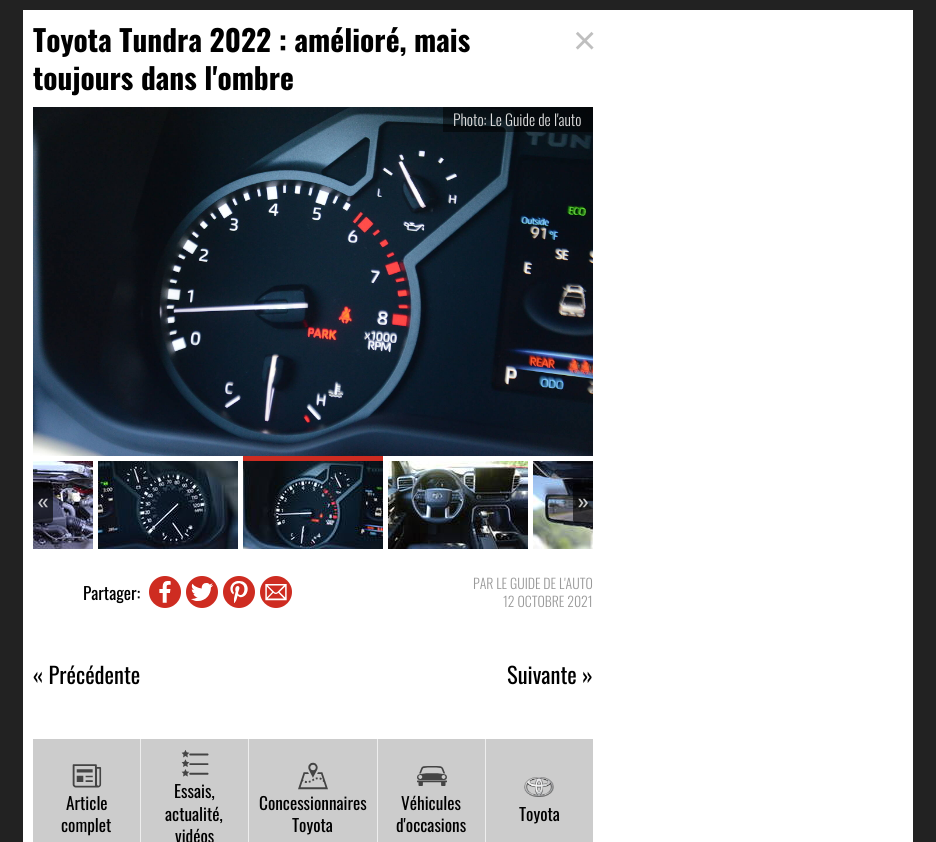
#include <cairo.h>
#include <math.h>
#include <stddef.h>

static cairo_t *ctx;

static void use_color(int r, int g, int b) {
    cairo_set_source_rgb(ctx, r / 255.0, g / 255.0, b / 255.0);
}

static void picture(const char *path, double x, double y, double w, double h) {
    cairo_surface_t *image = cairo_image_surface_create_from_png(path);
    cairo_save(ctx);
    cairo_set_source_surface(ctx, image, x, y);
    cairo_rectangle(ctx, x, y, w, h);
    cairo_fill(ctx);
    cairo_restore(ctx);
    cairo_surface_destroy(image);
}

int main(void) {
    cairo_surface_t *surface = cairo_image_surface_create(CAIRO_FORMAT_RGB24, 936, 842);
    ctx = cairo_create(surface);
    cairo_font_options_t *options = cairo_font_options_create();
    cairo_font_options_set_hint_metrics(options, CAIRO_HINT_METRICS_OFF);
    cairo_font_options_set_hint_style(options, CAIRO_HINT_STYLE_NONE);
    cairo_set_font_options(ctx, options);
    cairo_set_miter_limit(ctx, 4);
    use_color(34, 34, 34);
    cairo_paint(ctx);
    use_color(255, 255, 255);
    cairo_rectangle(ctx, 23, 10, 890, 832);
    cairo_fill(ctx);
    cairo_select_font_face(ctx, "Oswald", CAIRO_FONT_SLANT_NORMAL, CAIRO_FONT_WEIGHT_BOLD);
    cairo_set_font_size(ctx, 29.5);
    use_color(0, 0, 0);
    cairo_move_to(ctx, 33, 52);
    cairo_show_text(ctx, "Toyota Tundra 2022 : amélioré, mais");
    cairo_move_to(ctx, 33, 90);
    cairo_show_text(ctx, "toujours dans l'ombre");
    cairo_select_font_face(ctx, "Liberation Sans", CAIRO_FONT_SLANT_NORMAL, CAIRO_FONT_WEIGHT_NORMAL);
    cairo_set_font_size(ctx, 40);
    use_color(191, 191, 191);
    cairo_move_to(ctx, 573, 54);
    cairo_show_text(ctx, "×");
    picture("img1.png", 33, 107, 560, 349);
    cairo_set_source_rgba(ctx, 0, 0, 0, 0.5);
    cairo_rectangle(ctx, 443, 107, 150, 25);
    cairo_fill(ctx);
    cairo_select_font_face(ctx, "Oswald Light", CAIRO_FONT_SLANT_NORMAL, CAIRO_FONT_WEIGHT_NORMAL);
    cairo_set_font_size(ctx, 15.5);
    use_color(221, 221, 221);
    cairo_move_to(ctx, 453, 126);
    cairo_show_text(ctx, "Photo: Le Guide de l'auto");
    picture("img2.png", 33, 461, 60, 88);
    picture("img3.png", 98, 461, 140, 88);
    use_color(206, 44, 33);
    cairo_rectangle(ctx, 243, 456, 140, 5);
    cairo_fill(ctx);
    picture("img4.png", 243, 461, 140, 88);
    picture("img5.png", 388, 461, 140, 88);
    picture("img6.png", 533, 461, 60, 88);
    cairo_set_source_rgba(ctx, 0, 0, 0, 0.64);
    cairo_new_path(ctx);
    cairo_move_to(ctx, 33, 483);
    cairo_line_to(ctx, 50, 483);
    cairo_curve_to(ctx, 51.5, 483, 53, 484.5, 53, 486);
    cairo_line_to(ctx, 53, 520);
    cairo_curve_to(ctx, 53, 521.5, 51.5, 523, 50, 523);
    cairo_line_to(ctx, 33, 523);
    cairo_close_path(ctx);
    cairo_fill(ctx);
    picture("img7.png", 38, 498, 10, 10);
    cairo_new_path(ctx);
    cairo_move_to(ctx, 576, 483);
    cairo_line_to(ctx, 593, 483);
    cairo_line_to(ctx, 593, 523);
    cairo_line_to(ctx, 576, 523);
    cairo_curve_to(ctx, 574.5, 523, 573, 521.5, 573, 520);
    cairo_line_to(ctx, 573, 486);
    cairo_curve_to(ctx, 573, 484.5, 574.5, 483, 576, 483);
    cairo_close_path(ctx);
    cairo_fill(ctx);
    picture("img8.png", 578, 498, 10, 10);
    cairo_select_font_face(ctx, "Oswald", CAIRO_FONT_SLANT_NORMAL, CAIRO_FONT_WEIGHT_NORMAL);
    cairo_set_font_size(ctx, 17.25);
    use_color(0, 0, 0);
    cairo_move_to(ctx, 83, 600);
    cairo_show_text(ctx, "Partager:");
    use_color(206, 44, 33);
    cairo_new_path(ctx);
    cairo_arc(ctx, 165, 592, 16, 0, 2 * M_PI);
    cairo_fill(ctx);
    picture("img9.png", 159, 581, 12, 22);
    cairo_arc(ctx, 202, 592, 16, 0, 2 * M_PI);
    cairo_fill(ctx);
    picture("img10.png", 191, 583, 22, 18);
    cairo_arc(ctx, 239, 592, 16, 0, 2 * M_PI);
    cairo_fill(ctx);
    picture("img11.png", 230, 581, 18, 22);
    cairo_arc(ctx, 276, 592, 16, 0, 2 * M_PI);
    cairo_fill(ctx);
    picture("img12.png", 265, 584, 22, 17);
    cairo_select_font_face(ctx, "Oswald Light", CAIRO_FONT_SLANT_NORMAL, CAIRO_FONT_WEIGHT_NORMAL);
    cairo_set_font_size(ctx, 13.9);
    use_color(153, 153, 153);
    cairo_move_to(ctx, 473, 589);
    cairo_show_text(ctx, "PAR LE GUIDE DE L'AUTO");
    cairo_move_to(ctx, 503, 607);
    cairo_show_text(ctx, "12 OCTOBRE 2021");
    cairo_select_font_face(ctx, "Oswald", CAIRO_FONT_SLANT_NORMAL, CAIRO_FONT_WEIGHT_NORMAL);
    cairo_set_font_size(ctx, 22.5);
    use_color(0, 0, 0);
    cairo_move_to(ctx, 33, 684);
    cairo_show_text(ctx, "« Précédente");
    cairo_move_to(ctx, 507, 684);
    cairo_show_text(ctx, "Suivante »");
    use_color(204, 204, 204);
    cairo_rectangle(ctx, 33, 739, 560, 103);
    cairo_fill(ctx);
    picture("img13.png", 72, 764, 30, 24);
    cairo_set_font_size(ctx, 17.25);
    use_color(0, 0, 0);
    cairo_move_to(ctx, 66, 810);
    cairo_show_text(ctx, "Article");
    cairo_move_to(ctx, 61, 832);
    cairo_show_text(ctx, "complet");
    use_color(238, 238, 238);
    cairo_rectangle(ctx, 140, 739, 1, 103);
    cairo_fill(ctx);
    picture("img14.png", 181, 750, 28, 27);
    use_color(0, 0, 0);
    cairo_move_to(ctx, 174, 798);
    cairo_show_text(ctx, "Essais,");
    cairo_move_to(ctx, 165, 821);
    cairo_show_text(ctx, "actualité,");
    cairo_move_to(ctx, 175, 843);
    cairo_show_text(ctx, "vidéos");
    use_color(238, 238, 238);
    cairo_rectangle(ctx, 248, 739, 1, 103);
    cairo_fill(ctx);
    picture("img15.png", 298, 762, 30, 28);
    use_color(0, 0, 0);
    cairo_move_to(ctx, 259, 810);
    cairo_show_text(ctx, "Concessionnaires");
    cairo_move_to(ctx, 292, 832);
    cairo_show_text(ctx, "Toyota");
    use_color(238, 238, 238);
    cairo_rectangle(ctx, 377, 739, 1, 103);
    cairo_fill(ctx);
    picture("img16.png", 417, 766, 30, 20);
    use_color(0, 0, 0);
    cairo_move_to(ctx, 401, 810);
    cairo_show_text(ctx, "Véhicules");
    cairo_move_to(ctx, 396, 832);
    cairo_show_text(ctx, "d'occasions");
    use_color(238, 238, 238);
    cairo_rectangle(ctx, 485, 739, 1, 103);
    cairo_fill(ctx);
    picture("img17.png", 524, 777, 30, 20);
    use_color(0, 0, 0);
    cairo_move_to(ctx, 519, 821);
    cairo_show_text(ctx, "Toyota");
    cairo_surface_write_to_png(surface, "result.png");
    cairo_font_options_destroy(options);
    cairo_destroy(ctx);
    cairo_surface_destroy(surface);
    return 0;
}
